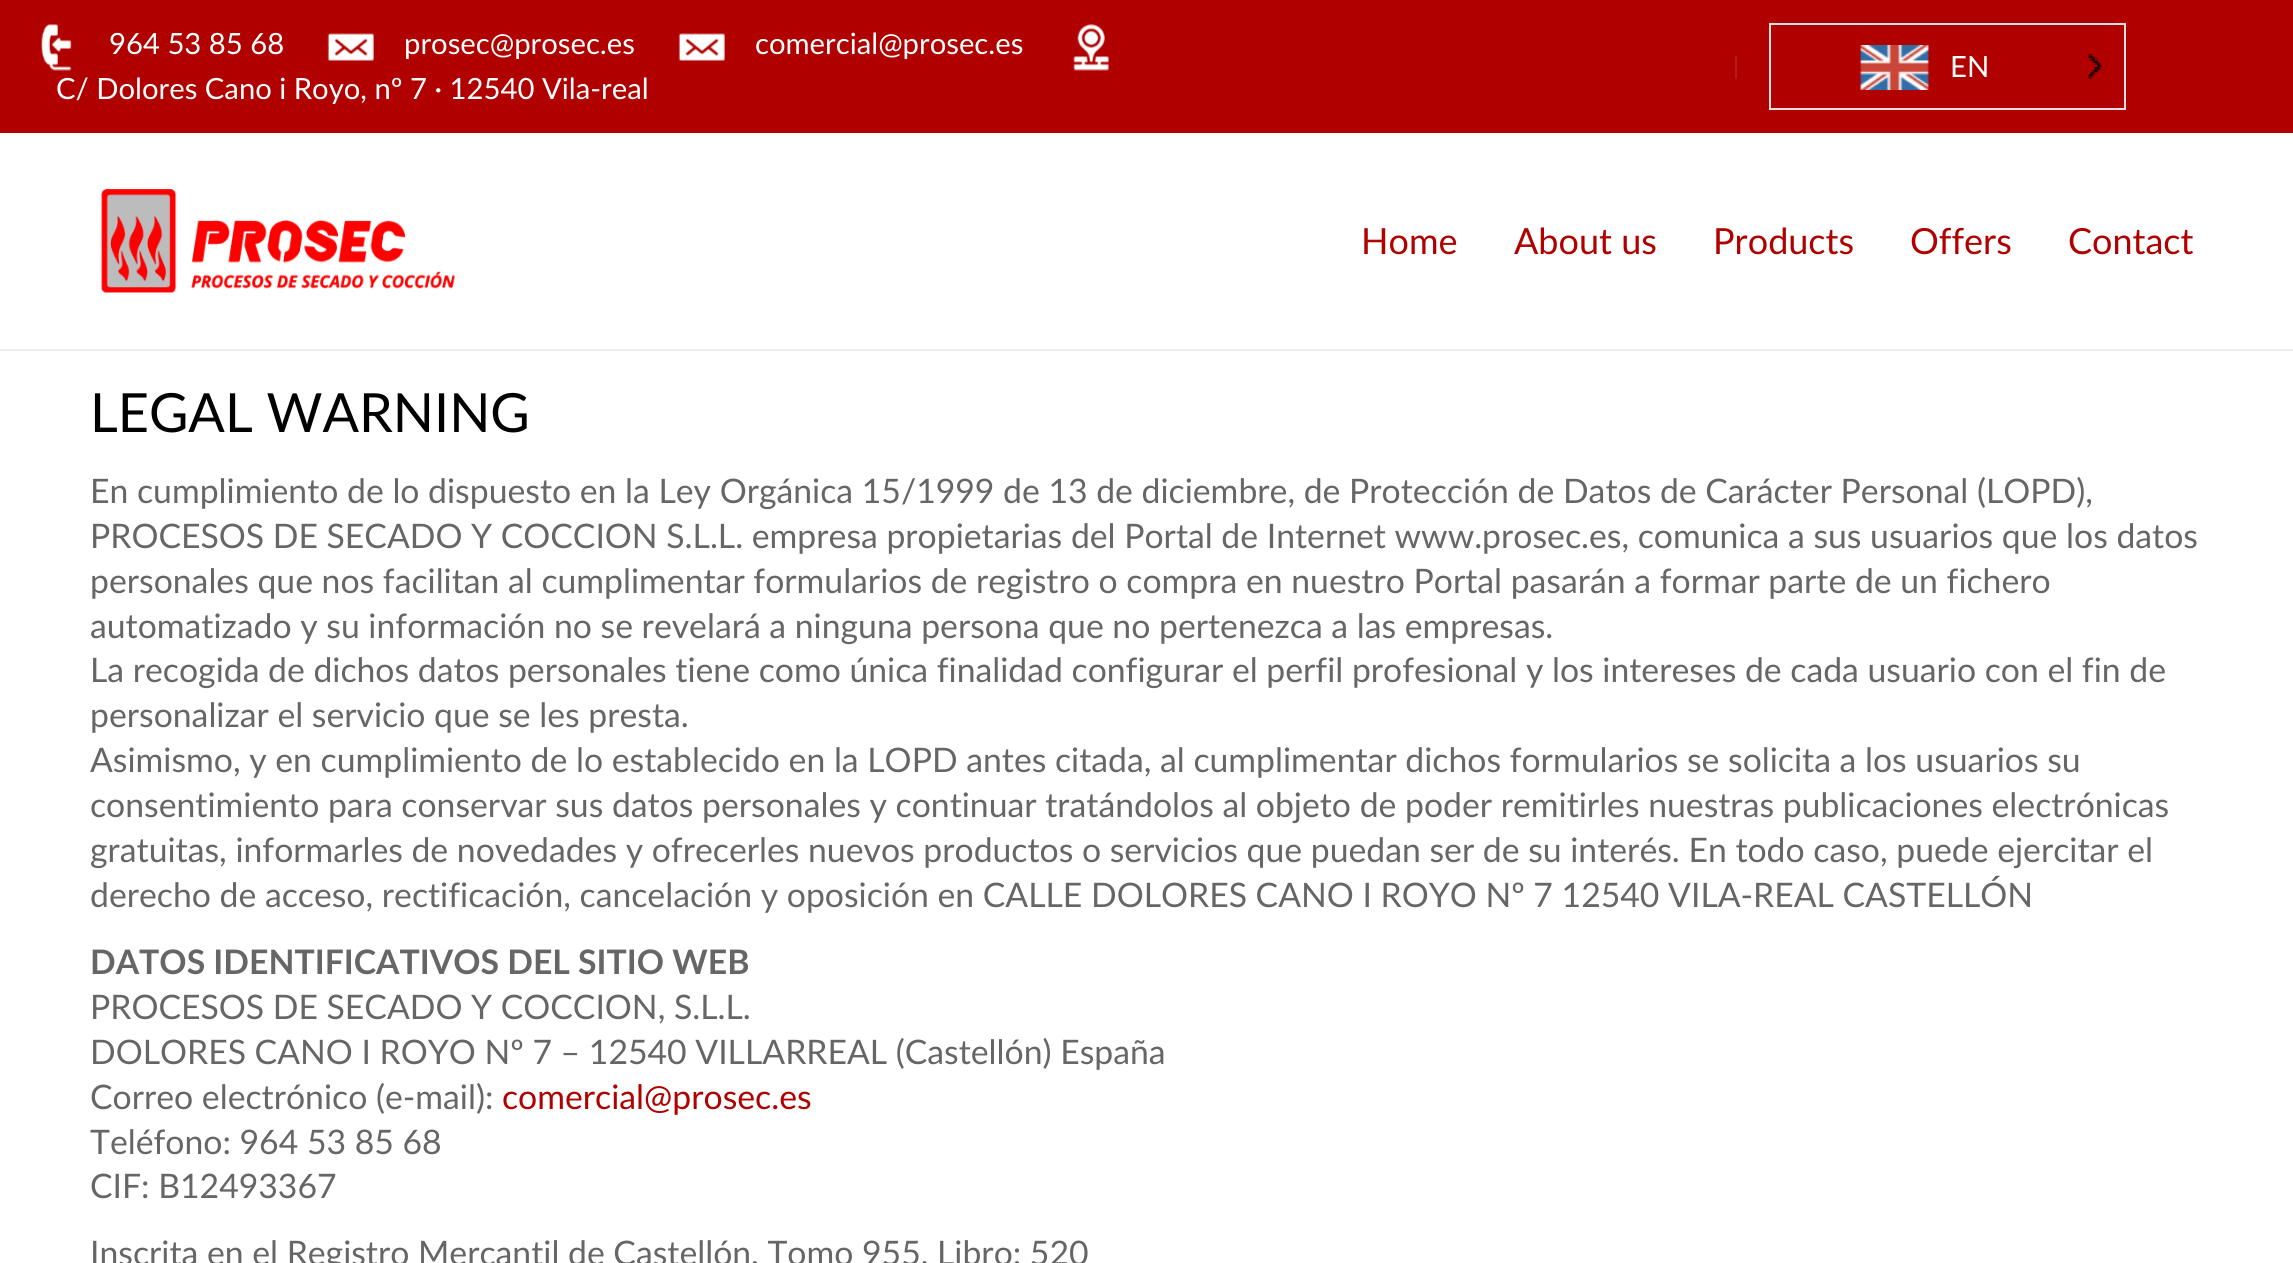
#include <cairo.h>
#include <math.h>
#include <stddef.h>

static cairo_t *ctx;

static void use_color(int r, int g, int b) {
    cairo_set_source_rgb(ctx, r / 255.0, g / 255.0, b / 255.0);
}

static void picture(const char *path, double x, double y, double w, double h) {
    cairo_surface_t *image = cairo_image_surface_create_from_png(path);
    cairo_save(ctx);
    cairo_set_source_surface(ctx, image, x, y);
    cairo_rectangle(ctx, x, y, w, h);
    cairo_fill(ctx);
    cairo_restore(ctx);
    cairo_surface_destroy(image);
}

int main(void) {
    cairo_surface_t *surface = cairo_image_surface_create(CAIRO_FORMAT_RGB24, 2293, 1263);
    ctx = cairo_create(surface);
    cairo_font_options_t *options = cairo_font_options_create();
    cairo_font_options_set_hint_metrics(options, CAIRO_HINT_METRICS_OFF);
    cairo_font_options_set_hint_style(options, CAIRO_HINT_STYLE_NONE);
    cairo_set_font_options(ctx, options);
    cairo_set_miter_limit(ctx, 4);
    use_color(255, 255, 255);
    cairo_paint(ctx);
    use_color(237, 237, 237);
    cairo_rectangle(ctx, 0, 349, 2293, 2);
    cairo_fill(ctx);
    use_color(176, 0, 0);
    cairo_rectangle(ctx, 0, 0, 2293, 133);
    cairo_fill(ctx);
    picture("img1.png", 41, 24, 31, 47);
    cairo_select_font_face(ctx, "Lato", CAIRO_FONT_SLANT_NORMAL, CAIRO_FONT_WEIGHT_NORMAL);
    cairo_set_font_size(ctx, 29.25);
    use_color(255, 255, 255);
    cairo_move_to(ctx, 109, 54);
    cairo_show_text(ctx, "964 53 85 68");
    picture("img2.png", 327, 33, 47, 28);
    cairo_move_to(ctx, 404, 54);
    cairo_show_text(ctx, "prosec@prosec.es");
    picture("img3.png", 678, 33, 47, 28);
    cairo_move_to(ctx, 755, 54);
    cairo_show_text(ctx, "comercial@prosec.es");
    picture("img4.png", 1073, 24, 36, 47);
    cairo_move_to(ctx, 56, 99);
    cairo_show_text(ctx, "C/ Dolores Cano i Royo, nº 7 · 12540 Vila-real");
    use_color(184, 26, 26);
    cairo_rectangle(ctx, 1735, 56, 2, 23);
    cairo_fill(ctx);
    cairo_rectangle(ctx, 1770, 24, 355, 85);
    use_color(224, 224, 224);
    cairo_stroke(ctx);
    picture("img5.png", 1860, 45, 69, 45);
    use_color(255, 255, 255);
    cairo_move_to(ctx, 1950, 77);
    cairo_show_text(ctx, "EN");
    picture("img6.png", 2088, 54, 14, 25);
    picture("img7.png", 101, 189, 354, 104);
    cairo_set_font_size(ctx, 36);
    use_color(176, 0, 0);
    cairo_move_to(ctx, 1361, 254);
    cairo_show_text(ctx, "Home");
    cairo_move_to(ctx, 1514, 254);
    cairo_show_text(ctx, "About us");
    cairo_move_to(ctx, 1713, 254);
    cairo_show_text(ctx, "Products");
    cairo_move_to(ctx, 1910, 254);
    cairo_show_text(ctx, "Offers");
    cairo_move_to(ctx, 2068, 254);
    cairo_show_text(ctx, "Contact");
    cairo_set_font_size(ctx, 54);
    use_color(0, 0, 0);
    cairo_move_to(ctx, 90, 432);
    cairo_show_text(ctx, "LEGAL WARNING");
    cairo_set_font_size(ctx, 33.75);
    use_color(102, 102, 102);
    cairo_move_to(ctx, 90, 503);
    cairo_show_text(ctx, "En cumplimiento de lo dispuesto en la Ley Orgánica 15/1999 de 13 de diciembre, de Protección de Datos de Carácter Personal (LOPD),");
    cairo_move_to(ctx, 90, 548);
    cairo_show_text(ctx, "PROCESOS DE SECADO Y COCCION S.L.L. empresa propietarias del Portal de Internet www.prosec.es, comunica a sus usuarios que los datos");
    cairo_move_to(ctx, 90, 593);
    cairo_show_text(ctx, "personales que nos facilitan al cumplimentar formularios de registro o compra en nuestro Portal pasarán a formar parte de un fichero");
    cairo_move_to(ctx, 90, 638);
    cairo_show_text(ctx, "automatizado y su información no se revelará a ninguna persona que no pertenezca a las empresas.");
    cairo_move_to(ctx, 90, 682);
    cairo_show_text(ctx, "La recogida de dichos datos personales tiene como única finalidad configurar el perfil profesional y los intereses de cada usuario con el fin de");
    cairo_move_to(ctx, 90, 727);
    cairo_show_text(ctx, "personalizar el servicio que se les presta.");
    cairo_move_to(ctx, 90, 772);
    cairo_show_text(ctx, "Asimismo, y en cumplimiento de lo establecido en la LOPD antes citada, al cumplimentar dichos formularios se solicita a los usuarios su");
    cairo_move_to(ctx, 90, 817);
    cairo_show_text(ctx, "consentimiento para conservar sus datos personales y continuar tratándolos al objeto de poder remitirles nuestras publicaciones electrónicas");
    cairo_move_to(ctx, 90, 862);
    cairo_show_text(ctx, "gratuitas, informarles de novedades y ofrecerles nuevos productos o servicios que puedan ser de su interés. En todo caso, puede ejercitar el");
    cairo_move_to(ctx, 90, 907);
    cairo_show_text(ctx, "derecho de acceso, rectificación, cancelación y oposición en CALLE DOLORES CANO I ROYO Nº 7 12540 VILA-REAL CASTELLÓN");
    cairo_select_font_face(ctx, "Lato", CAIRO_FONT_SLANT_NORMAL, CAIRO_FONT_WEIGHT_BOLD);
    cairo_move_to(ctx, 90, 974);
    cairo_show_text(ctx, "DATOS IDENTIFICATIVOS DEL SITIO WEB");
    cairo_select_font_face(ctx, "Lato", CAIRO_FONT_SLANT_NORMAL, CAIRO_FONT_WEIGHT_NORMAL);
    cairo_move_to(ctx, 90, 1019);
    cairo_show_text(ctx, "PROCESOS DE SECADO Y COCCION, S.L.L.");
    cairo_move_to(ctx, 90, 1064);
    cairo_show_text(ctx, "DOLORES CANO I ROYO Nº 7 – 12540 VILLARREAL (Castellón) España");
    cairo_move_to(ctx, 90, 1109);
    cairo_show_text(ctx, "Correo electrónico (e-mail):");
    use_color(176, 0, 0);
    cairo_move_to(ctx, 502, 1109);
    cairo_show_text(ctx, "comercial@prosec.es");
    use_color(102, 102, 102);
    cairo_move_to(ctx, 90, 1154);
    cairo_show_text(ctx, "Teléfono: 964 53 85 68");
    cairo_move_to(ctx, 90, 1198);
    cairo_show_text(ctx, "CIF: B12493367");
    cairo_move_to(ctx, 90, 1265);
    cairo_show_text(ctx, "Inscrita en el Registro Mercantil de Castellón, Tomo 955, Libro: 520");
    cairo_surface_write_to_png(surface, "result.png");
    cairo_font_options_destroy(options);
    cairo_destroy(ctx);
    cairo_surface_destroy(surface);
    return 0;
}
